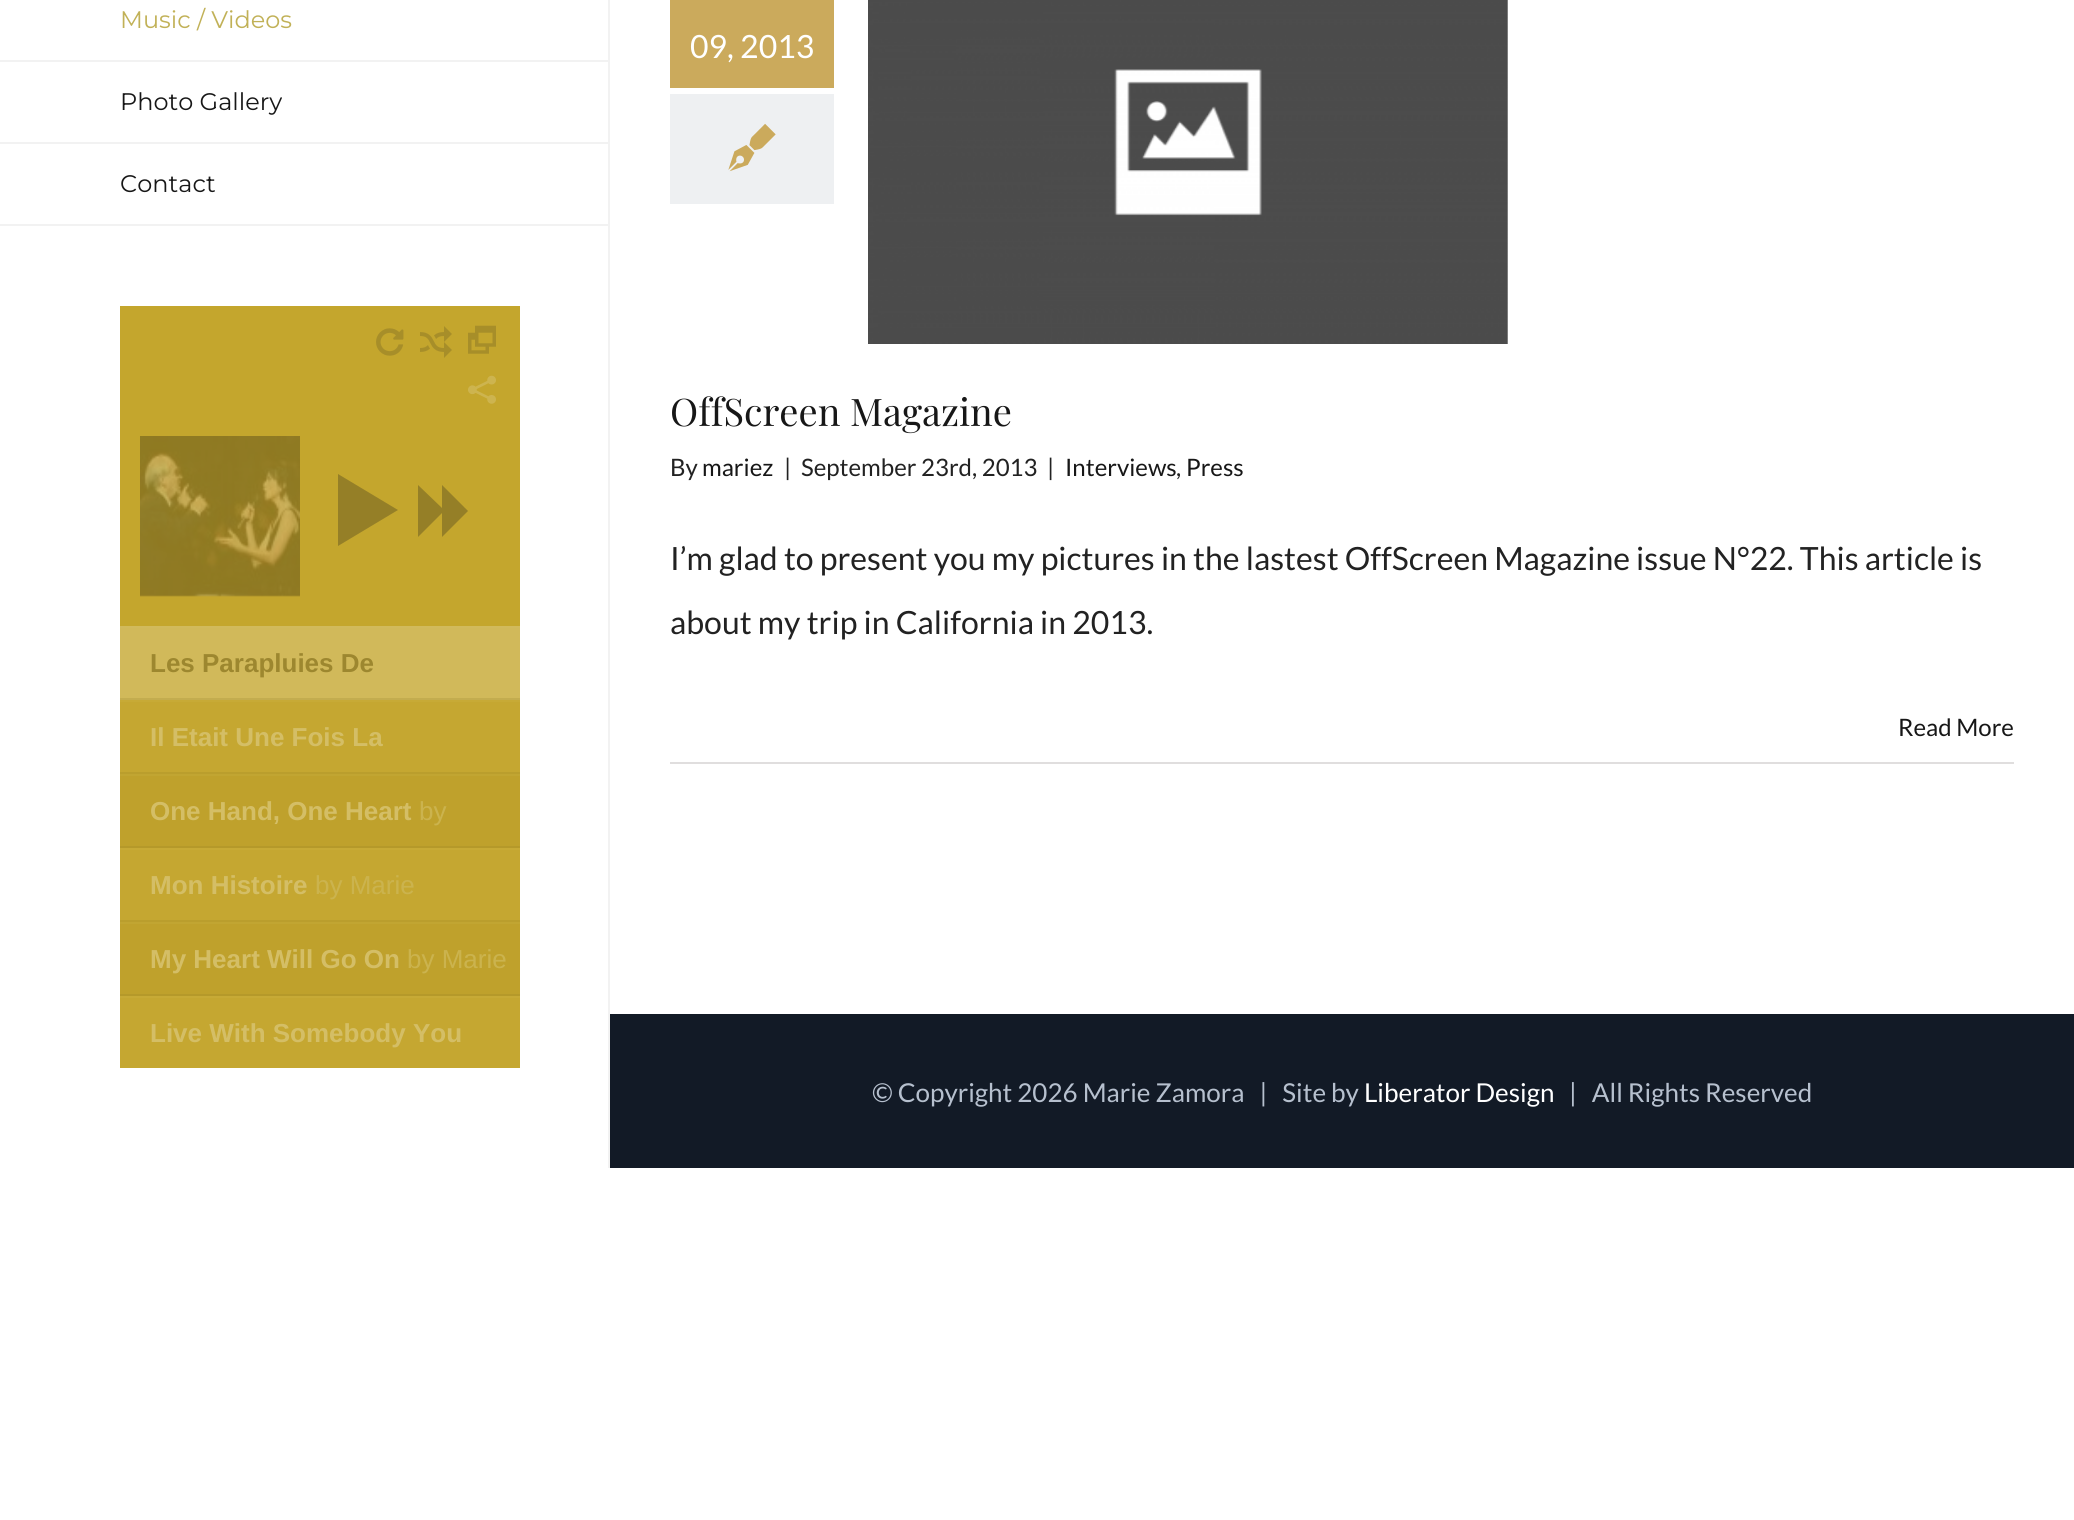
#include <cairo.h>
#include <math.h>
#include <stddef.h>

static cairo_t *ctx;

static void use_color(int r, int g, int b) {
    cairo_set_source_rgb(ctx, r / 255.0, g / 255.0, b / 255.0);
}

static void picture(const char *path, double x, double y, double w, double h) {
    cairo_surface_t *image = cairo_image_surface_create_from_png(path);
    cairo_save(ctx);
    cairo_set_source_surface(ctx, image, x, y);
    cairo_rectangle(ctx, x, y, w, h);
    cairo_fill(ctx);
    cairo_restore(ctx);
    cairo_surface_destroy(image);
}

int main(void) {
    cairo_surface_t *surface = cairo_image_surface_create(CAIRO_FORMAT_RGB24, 2074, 1520);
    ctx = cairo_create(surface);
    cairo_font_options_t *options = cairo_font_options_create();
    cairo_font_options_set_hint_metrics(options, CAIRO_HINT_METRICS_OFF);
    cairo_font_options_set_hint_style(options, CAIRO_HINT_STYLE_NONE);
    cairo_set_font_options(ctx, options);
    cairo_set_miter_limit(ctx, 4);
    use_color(255, 255, 255);
    cairo_paint(ctx);
    use_color(242, 242, 242);
    cairo_rectangle(ctx, 608, 0, 2, 1168);
    cairo_fill(ctx);
    cairo_rectangle(ctx, 0, 60, 610, 2);
    cairo_fill(ctx);
    cairo_select_font_face(ctx, "Montserrat Thin", CAIRO_FONT_SLANT_NORMAL, CAIRO_FONT_WEIGHT_NORMAL);
    cairo_set_font_size(ctx, 24);
    use_color(193, 177, 87);
    cairo_move_to(ctx, 120, 28);
    cairo_show_text(ctx, "Music / Videos");
    use_color(242, 242, 242);
    cairo_rectangle(ctx, 0, 142, 610, 2);
    cairo_fill(ctx);
    use_color(23, 23, 23);
    cairo_move_to(ctx, 120, 110);
    cairo_show_text(ctx, "Photo Gallery");
    use_color(242, 242, 242);
    cairo_rectangle(ctx, 0, 224, 610, 2);
    cairo_fill(ctx);
    use_color(23, 23, 23);
    cairo_move_to(ctx, 120, 192);
    cairo_show_text(ctx, "Contact");
    use_color(196, 166, 45);
    cairo_rectangle(ctx, 120, 306, 400, 320);
    cairo_fill(ctx);
    picture("img1.png", 140, 436, 160, 161);
    picture("img2.png", 376, 328, 28, 28);
    picture("img3.png", 420, 326, 32, 32);
    picture("img4.png", 468, 325, 28, 29);
    picture("img5.png", 468, 375, 28, 29);
    use_color(149, 127, 39);
    cairo_new_path(ctx);
    cairo_move_to(ctx, 338, 474);
    cairo_line_to(ctx, 398, 510);
    cairo_line_to(ctx, 338, 546);
    cairo_close_path(ctx);
    cairo_fill(ctx);
    cairo_new_path(ctx);
    cairo_move_to(ctx, 442, 537);
    cairo_line_to(ctx, 442, 513);
    cairo_line_to(ctx, 418, 537);
    cairo_line_to(ctx, 418, 485);
    cairo_line_to(ctx, 442, 508);
    cairo_line_to(ctx, 442, 485);
    cairo_line_to(ctx, 468, 511);
    cairo_close_path(ctx);
    cairo_fill(ctx);
    use_color(209, 185, 90);
    cairo_rectangle(ctx, 120, 628, 400, 70);
    cairo_fill(ctx);
    use_color(209, 186, 92);
    cairo_rectangle(ctx, 120, 626, 400, 2);
    cairo_fill(ctx);
    use_color(195, 172, 79);
    cairo_rectangle(ctx, 120, 698, 400, 2);
    cairo_fill(ctx);
    cairo_select_font_face(ctx, "Liberation Sans", CAIRO_FONT_SLANT_NORMAL, CAIRO_FONT_WEIGHT_BOLD);
    cairo_set_font_size(ctx, 26);
    use_color(157, 135, 47);
    cairo_move_to(ctx, 150, 672);
    cairo_show_text(ctx, "Les Parapluies De");
    use_color(197, 167, 49);
    cairo_rectangle(ctx, 120, 702, 400, 70);
    cairo_fill(ctx);
    use_color(199, 170, 54);
    cairo_rectangle(ctx, 120, 700, 400, 2);
    cairo_fill(ctx);
    use_color(186, 158, 45);
    cairo_rectangle(ctx, 120, 772, 400, 2);
    cairo_fill(ctx);
    use_color(212, 190, 102);
    cairo_move_to(ctx, 150, 746);
    cairo_show_text(ctx, "Il Etait Une Fois La");
    use_color(191, 161, 44);
    cairo_rectangle(ctx, 120, 776, 400, 70);
    cairo_fill(ctx);
    use_color(193, 165, 50);
    cairo_rectangle(ctx, 120, 774, 400, 2);
    cairo_fill(ctx);
    use_color(181, 153, 42);
    cairo_rectangle(ctx, 120, 846, 400, 2);
    cairo_fill(ctx);
    use_color(212, 190, 102);
    cairo_move_to(ctx, 150, 820);
    cairo_show_text(ctx, "One Hand, One Heart");
    cairo_select_font_face(ctx, "Liberation Sans", CAIRO_FONT_SLANT_NORMAL, CAIRO_FONT_WEIGHT_NORMAL);
    use_color(203, 179, 78);
    cairo_move_to(ctx, 419, 820);
    cairo_show_text(ctx, "by");
    use_color(197, 167, 49);
    cairo_rectangle(ctx, 120, 850, 400, 70);
    cairo_fill(ctx);
    use_color(199, 170, 54);
    cairo_rectangle(ctx, 120, 848, 400, 2);
    cairo_fill(ctx);
    use_color(186, 158, 45);
    cairo_rectangle(ctx, 120, 920, 400, 2);
    cairo_fill(ctx);
    cairo_select_font_face(ctx, "Liberation Sans", CAIRO_FONT_SLANT_NORMAL, CAIRO_FONT_WEIGHT_BOLD);
    use_color(212, 190, 102);
    cairo_move_to(ctx, 150, 894);
    cairo_show_text(ctx, "Mon Histoire");
    cairo_select_font_face(ctx, "Liberation Sans", CAIRO_FONT_SLANT_NORMAL, CAIRO_FONT_WEIGHT_NORMAL);
    use_color(203, 179, 78);
    cairo_move_to(ctx, 315, 894);
    cairo_show_text(ctx, "by Marie");
    use_color(191, 161, 44);
    cairo_rectangle(ctx, 120, 924, 400, 70);
    cairo_fill(ctx);
    use_color(193, 165, 50);
    cairo_rectangle(ctx, 120, 922, 400, 2);
    cairo_fill(ctx);
    use_color(181, 153, 42);
    cairo_rectangle(ctx, 120, 994, 400, 2);
    cairo_fill(ctx);
    cairo_select_font_face(ctx, "Liberation Sans", CAIRO_FONT_SLANT_NORMAL, CAIRO_FONT_WEIGHT_BOLD);
    use_color(212, 190, 102);
    cairo_move_to(ctx, 150, 968);
    cairo_show_text(ctx, "My Heart Will Go On");
    cairo_select_font_face(ctx, "Liberation Sans", CAIRO_FONT_SLANT_NORMAL, CAIRO_FONT_WEIGHT_NORMAL);
    use_color(203, 179, 78);
    cairo_move_to(ctx, 407, 968);
    cairo_show_text(ctx, "by Marie");
    use_color(197, 167, 49);
    cairo_rectangle(ctx, 120, 998, 400, 70);
    cairo_fill(ctx);
    use_color(199, 170, 54);
    cairo_rectangle(ctx, 120, 996, 400, 2);
    cairo_fill(ctx);
    cairo_select_font_face(ctx, "Liberation Sans", CAIRO_FONT_SLANT_NORMAL, CAIRO_FONT_WEIGHT_BOLD);
    use_color(212, 190, 102);
    cairo_move_to(ctx, 150, 1042);
    cairo_show_text(ctx, "Live With Somebody You");
    use_color(203, 170, 92);
    cairo_rectangle(ctx, 670, 0, 164, 88);
    cairo_fill(ctx);
    cairo_select_font_face(ctx, "Lato", CAIRO_FONT_SLANT_NORMAL, CAIRO_FONT_WEIGHT_NORMAL);
    cairo_set_font_size(ctx, 32);
    use_color(255, 255, 255);
    cairo_move_to(ctx, 690, 58);
    cairo_show_text(ctx, "09, 2013");
    use_color(238, 240, 242);
    cairo_rectangle(ctx, 670, 94, 164, 110);
    cairo_fill(ctx);
    picture("img6.png", 728, 123, 48, 49);
    picture("img7.png", 868, 0, 640, 344);
    cairo_select_font_face(ctx, "Playfair Display", CAIRO_FONT_SLANT_NORMAL, CAIRO_FONT_WEIGHT_NORMAL);
    cairo_set_font_size(ctx, 38);
    use_color(23, 23, 23);
    cairo_move_to(ctx, 670, 426);
    cairo_show_text(ctx, "OffScreen Magazine");
    cairo_select_font_face(ctx, "Lato", CAIRO_FONT_SLANT_NORMAL, CAIRO_FONT_WEIGHT_NORMAL);
    cairo_set_font_size(ctx, 24);
    use_color(34, 34, 34);
    cairo_move_to(ctx, 670, 476);
    cairo_show_text(ctx, "By");
    use_color(23, 23, 23);
    cairo_move_to(ctx, 702, 476);
    cairo_show_text(ctx, "mariez");
    use_color(34, 34, 34);
    cairo_move_to(ctx, 784, 476);
    cairo_show_text(ctx, "|");
    cairo_move_to(ctx, 801, 476);
    cairo_show_text(ctx, "September 23rd, 2013");
    cairo_move_to(ctx, 1047, 476);
    cairo_show_text(ctx, "|");
    use_color(23, 23, 23);
    cairo_move_to(ctx, 1065, 476);
    cairo_show_text(ctx, "Interviews");
    use_color(34, 34, 34);
    cairo_move_to(ctx, 1176, 476);
    cairo_show_text(ctx, ",");
    use_color(23, 23, 23);
    cairo_move_to(ctx, 1186, 476);
    cairo_show_text(ctx, "Press");
    cairo_set_font_size(ctx, 32);
    use_color(34, 34, 34);
    cairo_move_to(ctx, 670, 570);
    cairo_show_text(ctx, "I’m glad to present you my pictures in the lastest OffScreen Magazine issue N°22. This article is");
    cairo_move_to(ctx, 670, 634);
    cairo_show_text(ctx, "about my trip in California in 2013.");
    use_color(224, 222, 222);
    cairo_rectangle(ctx, 670, 762, 1344, 2);
    cairo_fill(ctx);
    cairo_set_font_size(ctx, 24);
    use_color(23, 23, 23);
    cairo_move_to(ctx, 1898, 736);
    cairo_show_text(ctx, "Read More");
    use_color(18, 26, 38);
    cairo_rectangle(ctx, 610, 1014, 1464, 154);
    cairo_fill(ctx);
    cairo_set_font_size(ctx, 26);
    use_color(182, 192, 206);
    cairo_move_to(ctx, 872, 1102);
    cairo_show_text(ctx, "© Copyright 2026 Marie Zamora   |   Site by");
    use_color(255, 255, 255);
    cairo_move_to(ctx, 1364, 1102);
    cairo_show_text(ctx, "Liberator Design");
    use_color(182, 192, 206);
    cairo_move_to(ctx, 1569, 1102);
    cairo_show_text(ctx, "|   All Rights Reserved");
    cairo_surface_write_to_png(surface, "result.png");
    cairo_font_options_destroy(options);
    cairo_destroy(ctx);
    cairo_surface_destroy(surface);
    return 0;
}
